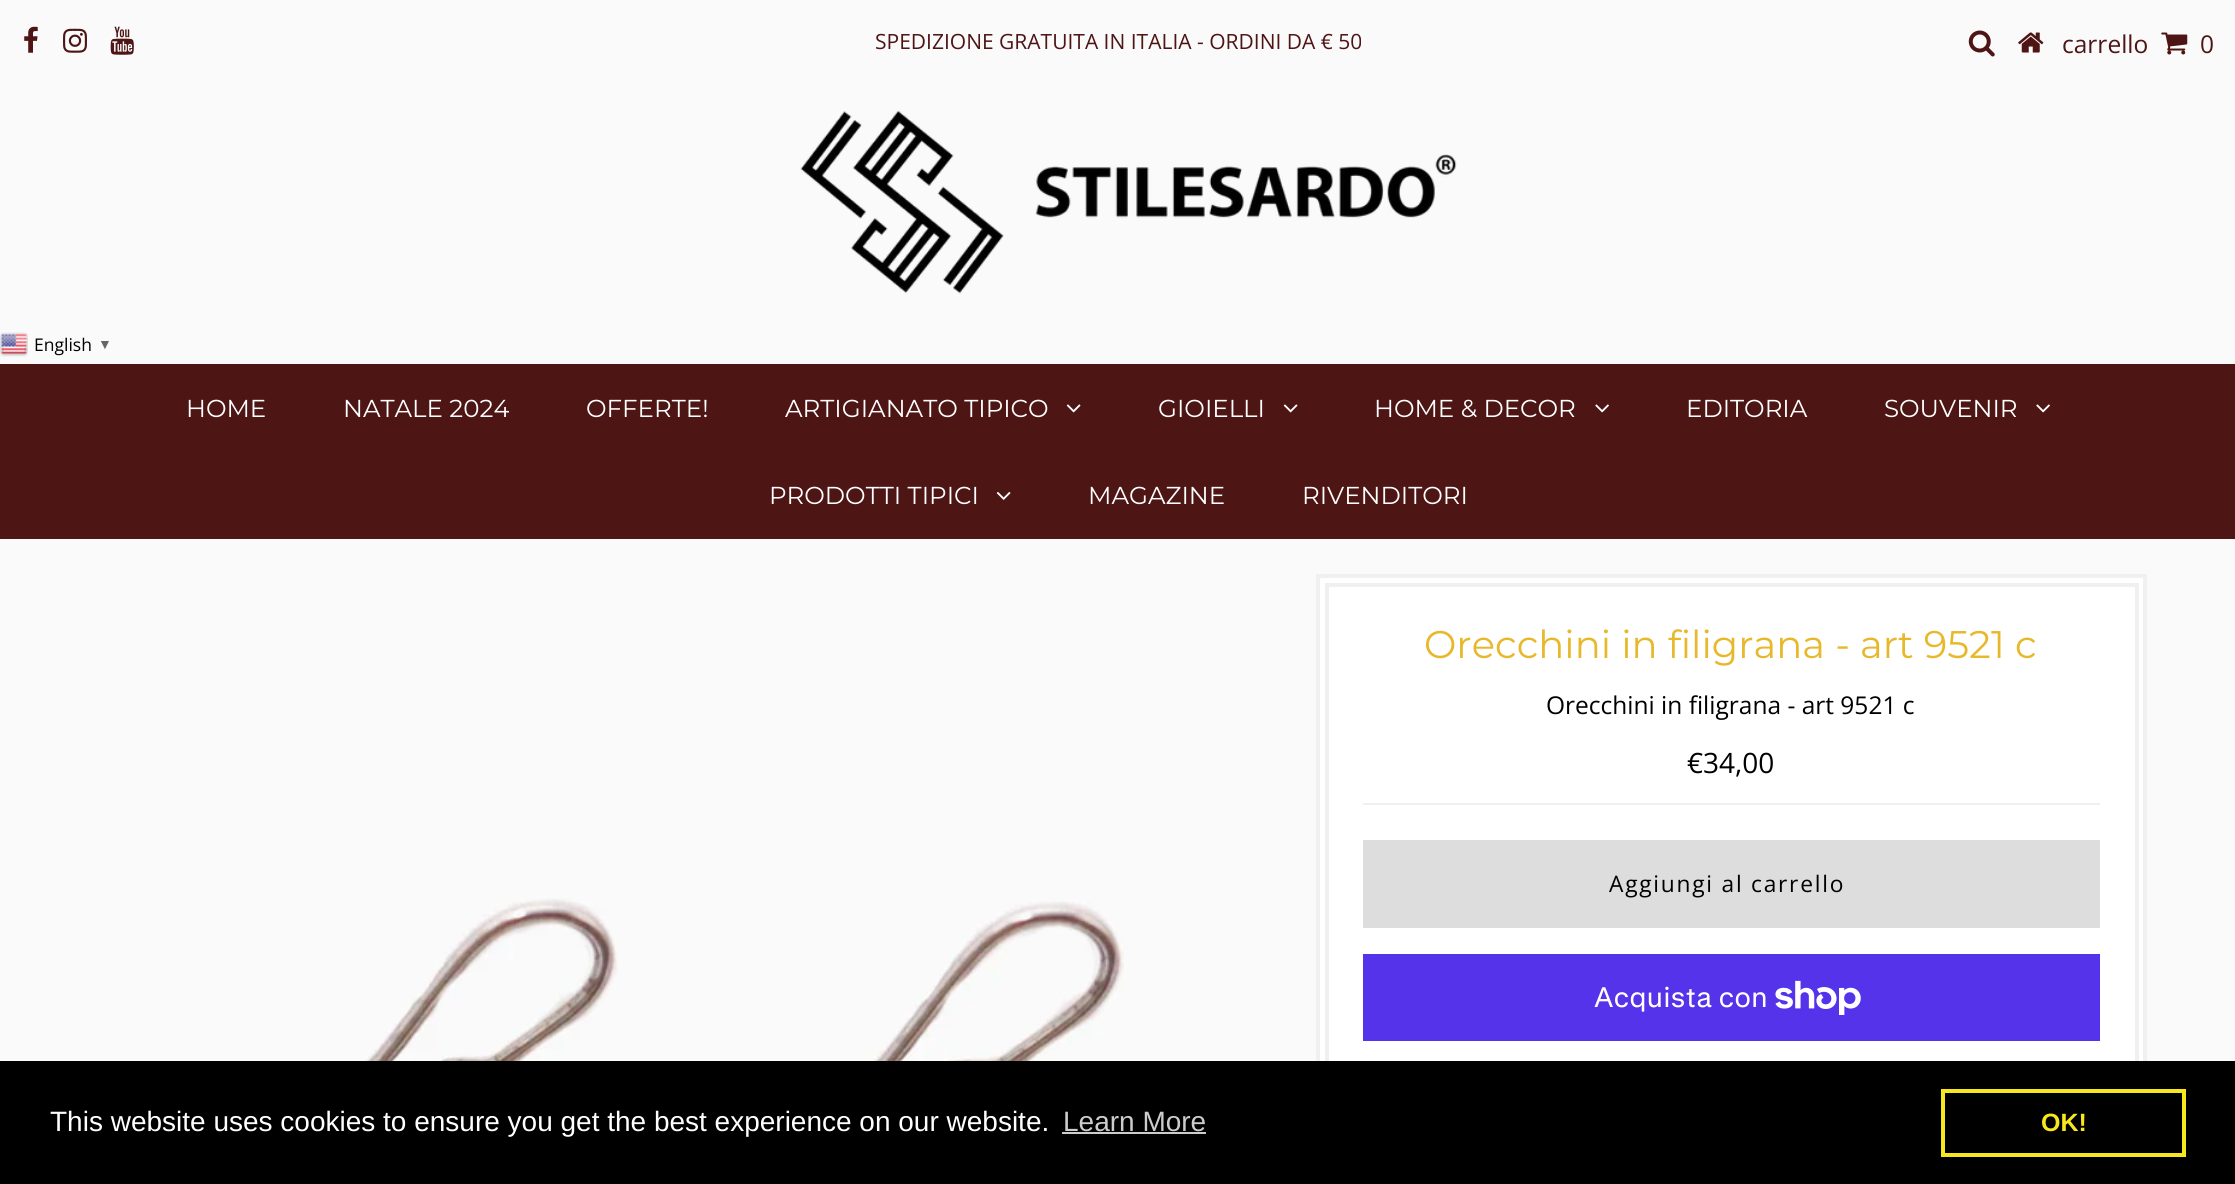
#include <cairo.h>
#include <math.h>
#include <stddef.h>

static cairo_t *ctx;

static void use_color(int r, int g, int b) {
    cairo_set_source_rgb(ctx, r / 255.0, g / 255.0, b / 255.0);
}

static void spaced_text(double x, double y, const char *s, double letter, double word) {
    cairo_move_to(ctx, x, y);
    while (*s) {
        char ch[5] = {0};
        int n = 0;
        do ch[n++] = *s++; while ((*s & 0xC0) == 0x80);
        cairo_show_text(ctx, ch);
        cairo_rel_move_to(ctx, letter + word * (*ch == ' '), 0);
    }
}

static void picture(const char *path, double x, double y, double w, double h) {
    cairo_surface_t *image = cairo_image_surface_create_from_png(path);
    cairo_save(ctx);
    cairo_set_source_surface(ctx, image, x, y);
    cairo_rectangle(ctx, x, y, w, h);
    cairo_fill(ctx);
    cairo_restore(ctx);
    cairo_surface_destroy(image);
}

int main(void) {
    cairo_surface_t *surface = cairo_image_surface_create(CAIRO_FORMAT_RGB24, 2235, 1184);
    ctx = cairo_create(surface);
    cairo_font_options_t *options = cairo_font_options_create();
    cairo_font_options_set_hint_metrics(options, CAIRO_HINT_METRICS_OFF);
    cairo_font_options_set_hint_style(options, CAIRO_HINT_STYLE_NONE);
    cairo_set_font_options(ctx, options);
    cairo_set_miter_limit(ctx, 4);
    use_color(250, 250, 250);
    cairo_paint(ctx);
    picture("img1.png", 24, 26, 14, 27);
    picture("img2.png", 63, 28, 24, 25);
    picture("img3.png", 110, 26, 24, 29);
    cairo_select_font_face(ctx, "Open Sans", CAIRO_FONT_SLANT_NORMAL, CAIRO_FONT_WEIGHT_NORMAL);
    cairo_set_font_size(ctx, 21);
    use_color(78, 21, 21);
    cairo_move_to(ctx, 875, 49);
    cairo_show_text(ctx, "SPEDIZIONE GRATUITA IN ITALIA - ORDINI DA € 50");
    picture("img4.png", 1968, 30, 27, 27);
    picture("img5.png", 2018, 32, 26, 21);
    cairo_set_font_size(ctx, 24.5);
    cairo_move_to(ctx, 2062, 53);
    cairo_show_text(ctx, "carrello");
    picture("img6.png", 2161, 32, 27, 23);
    cairo_move_to(ctx, 2200, 53);
    cairo_show_text(ctx, "0");
    picture("img7.png", 800, 110, 657, 184);
    picture("img8.png", 0, 332, 28, 25);
    cairo_set_font_size(ctx, 17.5);
    use_color(0, 0, 0);
    cairo_move_to(ctx, 34, 351);
    cairo_show_text(ctx, "English");
    cairo_select_font_face(ctx, "Liberation Serif", CAIRO_FONT_SLANT_NORMAL, CAIRO_FONT_WEIGHT_BOLD);
    cairo_set_font_size(ctx, 14);
    use_color(102, 102, 102);
    cairo_move_to(ctx, 98, 349);
    cairo_show_text(ctx, "▼");
    use_color(78, 21, 21);
    cairo_rectangle(ctx, 0, 364, 2235, 175);
    cairo_fill(ctx);
    cairo_select_font_face(ctx, "Montserrat", CAIRO_FONT_SLANT_NORMAL, CAIRO_FONT_WEIGHT_NORMAL);
    cairo_set_font_size(ctx, 24.5);
    use_color(255, 255, 255);
    cairo_move_to(ctx, 186, 417);
    cairo_show_text(ctx, "HOME");
    cairo_move_to(ctx, 343, 417);
    cairo_show_text(ctx, "NATALE 2024");
    cairo_move_to(ctx, 586, 417);
    cairo_show_text(ctx, "OFFERTE!");
    cairo_move_to(ctx, 785, 417);
    cairo_show_text(ctx, "ARTIGIANATO TIPICO");
    picture("img9.png", 1066, 404, 15, 9);
    cairo_move_to(ctx, 1158, 417);
    cairo_show_text(ctx, "GIOIELLI");
    picture("img9.png", 1283, 404, 15, 9);
    cairo_move_to(ctx, 1374, 417);
    cairo_show_text(ctx, "HOME & DECOR");
    picture("img10.png", 1595, 404, 14, 9);
    cairo_move_to(ctx, 1686, 417);
    cairo_show_text(ctx, "EDITORIA");
    cairo_move_to(ctx, 1884, 417);
    cairo_show_text(ctx, "SOUVENIR");
    picture("img10.png", 2036, 404, 14, 9);
    cairo_move_to(ctx, 769, 504);
    cairo_show_text(ctx, "PRODOTTI TIPICI");
    picture("img11.png", 996, 492, 15, 8);
    cairo_move_to(ctx, 1088, 504);
    cairo_show_text(ctx, "MAGAZINE");
    cairo_move_to(ctx, 1302, 504);
    cairo_show_text(ctx, "RIVENDITORI");
    picture("img12.png", 210, 898, 914, 163);
    cairo_rectangle(ctx, 1320, 578, 823, 483);
    cairo_fill(ctx);
    cairo_rectangle(ctx, 1318, 576, 827, 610);
    use_color(240, 240, 240);
    cairo_set_line_width(ctx, 4);
    cairo_stroke(ctx);
    cairo_rectangle(ctx, 1327, 585, 810, 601);
    cairo_stroke(ctx);
    cairo_set_font_size(ctx, 38.5);
    use_color(231, 184, 42);
    cairo_move_to(ctx, 1424, 658);
    cairo_show_text(ctx, "Orecchini in filigrana - art 9521 c");
    cairo_select_font_face(ctx, "Open Sans", CAIRO_FONT_SLANT_NORMAL, CAIRO_FONT_WEIGHT_NORMAL);
    cairo_set_font_size(ctx, 24.5);
    use_color(0, 0, 0);
    cairo_move_to(ctx, 1546, 714);
    cairo_show_text(ctx, "Orecchini in filigrana - art 9521 c");
    use_color(240, 240, 240);
    cairo_rectangle(ctx, 1363, 803, 737, 2);
    cairo_fill(ctx);
    cairo_set_font_size(ctx, 28);
    use_color(0, 0, 0);
    cairo_move_to(ctx, 1687, 773);
    cairo_show_text(ctx, "€34,00");
    use_color(221, 221, 221);
    cairo_rectangle(ctx, 1363, 840, 737, 88);
    cairo_fill(ctx);
    cairo_set_font_size(ctx, 22.75);
    use_color(0, 0, 0);
    spaced_text(1609, 892, "Aggiungi al carrello", 1.75, 0);
    use_color(84, 51, 235);
    cairo_rectangle(ctx, 1363, 954, 737, 87);
    cairo_fill(ctx);
    cairo_select_font_face(ctx, "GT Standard", CAIRO_FONT_SLANT_NORMAL, CAIRO_FONT_WEIGHT_NORMAL);
    cairo_set_font_size(ctx, 28);
    use_color(255, 255, 255);
    cairo_move_to(ctx, 1594, 1007);
    cairo_show_text(ctx, "Acquista con");
    picture("img13.png", 1775, 980, 86, 35);
    use_color(0, 0, 0);
    cairo_rectangle(ctx, 0, 1061, 2235, 123);
    cairo_fill(ctx);
    cairo_select_font_face(ctx, "Liberation Sans", CAIRO_FONT_SLANT_NORMAL, CAIRO_FONT_WEIGHT_NORMAL);
    use_color(255, 255, 255);
    cairo_move_to(ctx, 50, 1131);
    cairo_show_text(ctx, "This website uses cookies to ensure you get the best experience on our website.");
    use_color(204, 204, 204);
    cairo_move_to(ctx, 1063, 1131);
    cairo_show_text(ctx, "Learn More");
    cairo_rectangle(ctx, 1062, 1132, 144, 2);
    cairo_fill(ctx);
    cairo_rectangle(ctx, 1943, 1091, 241, 64);
    use_color(248, 231, 28);
    cairo_stroke(ctx);
    cairo_select_font_face(ctx, "Liberation Sans", CAIRO_FONT_SLANT_NORMAL, CAIRO_FONT_WEIGHT_BOLD);
    cairo_set_font_size(ctx, 25);
    cairo_move_to(ctx, 2041, 1131);
    cairo_show_text(ctx, "OK!");
    cairo_surface_write_to_png(surface, "result.png");
    cairo_font_options_destroy(options);
    cairo_destroy(ctx);
    cairo_surface_destroy(surface);
    return 0;
}
